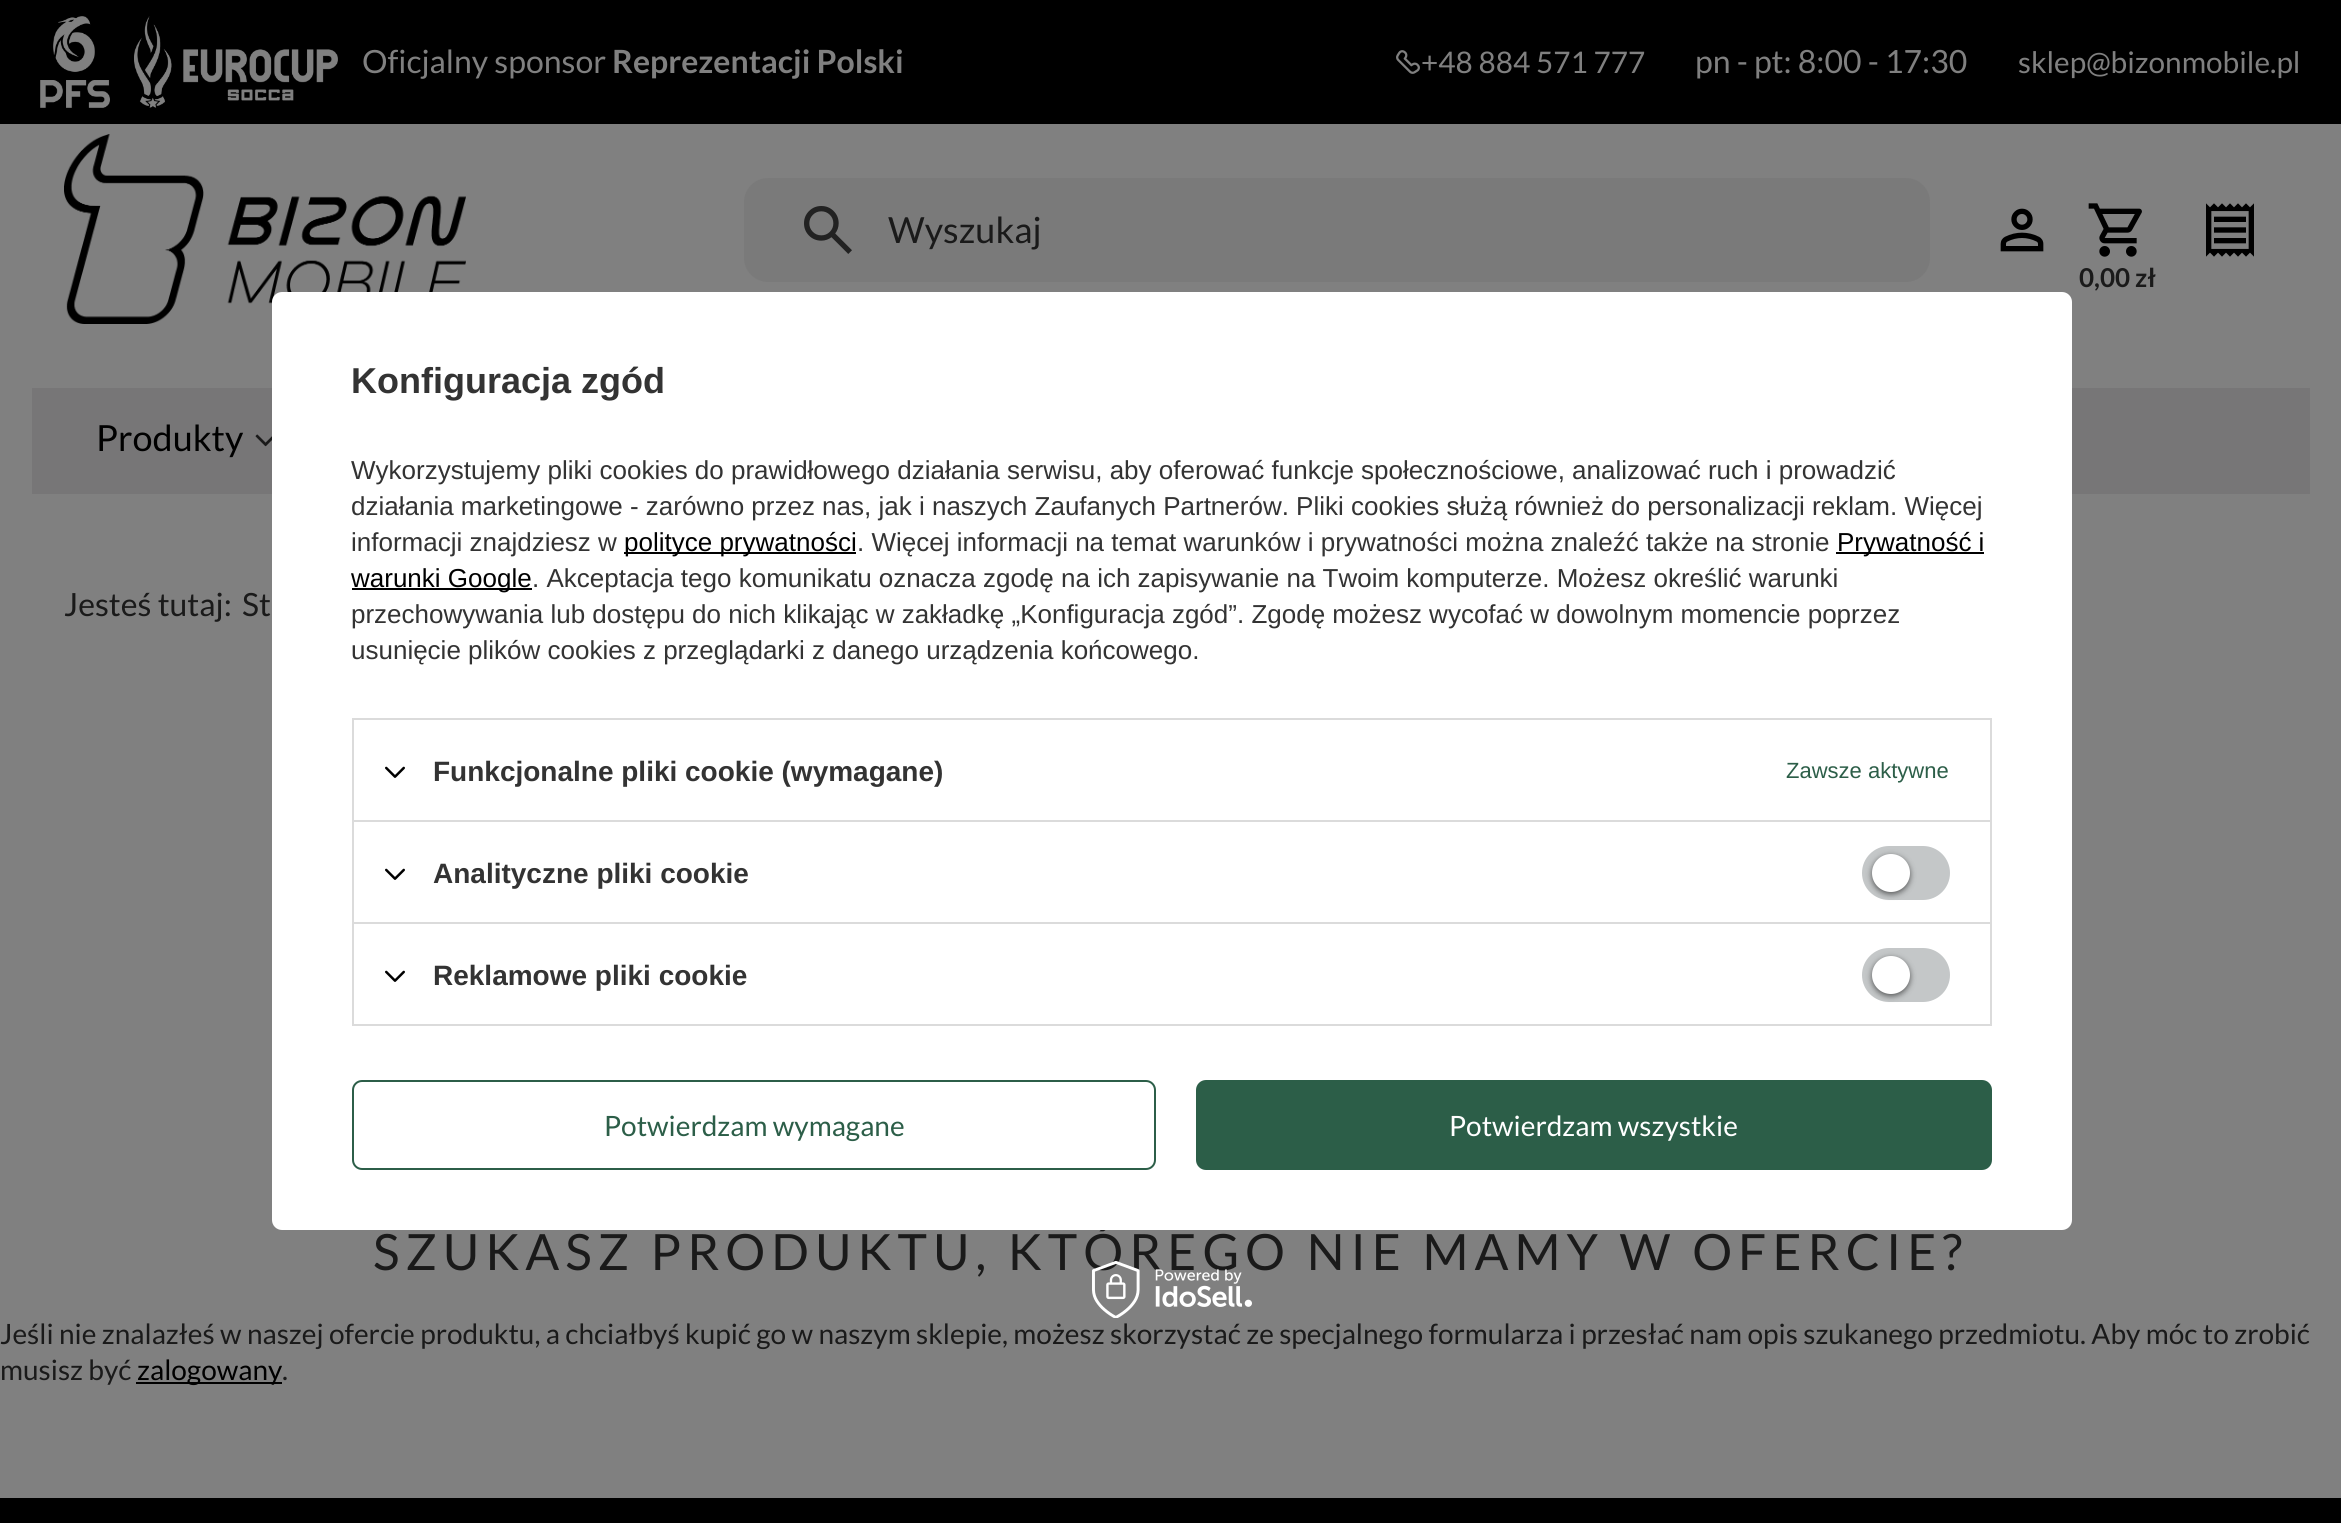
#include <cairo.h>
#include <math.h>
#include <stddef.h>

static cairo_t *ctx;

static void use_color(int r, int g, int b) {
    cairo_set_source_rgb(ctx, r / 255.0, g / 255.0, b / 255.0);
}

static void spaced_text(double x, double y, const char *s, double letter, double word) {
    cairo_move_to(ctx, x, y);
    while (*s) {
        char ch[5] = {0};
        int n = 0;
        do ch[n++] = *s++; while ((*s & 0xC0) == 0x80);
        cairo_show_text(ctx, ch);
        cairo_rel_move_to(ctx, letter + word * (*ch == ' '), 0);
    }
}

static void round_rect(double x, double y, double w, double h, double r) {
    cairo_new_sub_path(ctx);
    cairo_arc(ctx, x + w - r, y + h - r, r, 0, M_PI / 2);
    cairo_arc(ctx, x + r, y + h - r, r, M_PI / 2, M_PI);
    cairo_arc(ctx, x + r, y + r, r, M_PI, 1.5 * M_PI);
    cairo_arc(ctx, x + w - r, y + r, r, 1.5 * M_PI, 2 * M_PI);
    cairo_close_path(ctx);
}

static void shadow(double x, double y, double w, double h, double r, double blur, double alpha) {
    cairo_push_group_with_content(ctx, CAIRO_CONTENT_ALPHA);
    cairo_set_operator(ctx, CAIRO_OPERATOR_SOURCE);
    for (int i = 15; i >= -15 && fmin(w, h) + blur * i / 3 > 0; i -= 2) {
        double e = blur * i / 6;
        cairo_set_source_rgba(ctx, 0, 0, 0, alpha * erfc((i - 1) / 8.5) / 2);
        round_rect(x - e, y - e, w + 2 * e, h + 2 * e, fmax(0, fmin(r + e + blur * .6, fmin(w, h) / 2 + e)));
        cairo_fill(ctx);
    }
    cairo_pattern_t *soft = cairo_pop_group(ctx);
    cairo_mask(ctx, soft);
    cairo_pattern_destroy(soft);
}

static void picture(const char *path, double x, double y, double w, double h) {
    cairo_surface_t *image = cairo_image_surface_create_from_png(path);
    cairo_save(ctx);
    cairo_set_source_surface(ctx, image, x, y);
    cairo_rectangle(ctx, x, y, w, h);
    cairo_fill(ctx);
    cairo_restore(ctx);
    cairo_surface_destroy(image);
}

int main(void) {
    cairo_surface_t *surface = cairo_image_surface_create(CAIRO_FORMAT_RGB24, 2341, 1523);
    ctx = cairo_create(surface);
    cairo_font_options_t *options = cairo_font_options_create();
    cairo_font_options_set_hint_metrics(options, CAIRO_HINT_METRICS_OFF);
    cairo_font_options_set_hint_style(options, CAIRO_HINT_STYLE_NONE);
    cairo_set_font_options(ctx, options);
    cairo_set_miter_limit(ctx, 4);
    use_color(128, 128, 128);
    cairo_paint(ctx);
    use_color(0, 0, 0);
    cairo_rectangle(ctx, 0, 0, 2341, 124);
    cairo_fill(ctx);
    picture("img1.png", 40, 16, 70, 92);
    picture("img2.png", 134, 16, 204, 92);
    cairo_select_font_face(ctx, "Lato", CAIRO_FONT_SLANT_NORMAL, CAIRO_FONT_WEIGHT_NORMAL);
    cairo_set_font_size(ctx, 32);
    use_color(128, 128, 128);
    cairo_move_to(ctx, 362, 73);
    cairo_show_text(ctx, "Oficjalny sponsor");
    cairo_select_font_face(ctx, "Lato", CAIRO_FONT_SLANT_NORMAL, CAIRO_FONT_WEIGHT_BOLD);
    cairo_move_to(ctx, 612, 73);
    cairo_show_text(ctx, "Reprezentacji Polski");
    picture("img3.png", 1396, 50, 24, 24);
    cairo_select_font_face(ctx, "Lato", CAIRO_FONT_SLANT_NORMAL, CAIRO_FONT_WEIGHT_NORMAL);
    cairo_set_font_size(ctx, 29.75);
    cairo_move_to(ctx, 1421, 73);
    cairo_show_text(ctx, "+48 884 571 777");
    cairo_set_font_size(ctx, 32);
    cairo_move_to(ctx, 1695, 73);
    cairo_show_text(ctx, "pn - pt: 8:00 - 17:30");
    cairo_set_font_size(ctx, 29.75);
    cairo_move_to(ctx, 2018, 73);
    cairo_show_text(ctx, "sklep@bizonmobile.pl");
    picture("img4.png", 64, 134, 402, 190);
    use_color(122, 122, 122);
    round_rect(744, 178, 1186, 104, 24);
    cairo_fill(ctx);
    picture("img5.png", 804, 206, 48, 48);
    cairo_set_font_size(ctx, 36);
    use_color(26, 26, 26);
    cairo_move_to(ctx, 888, 243);
    cairo_show_text(ctx, "Wyszukaj");
    picture("img6.png", 2000, 208, 44, 44);
    picture("img7.png", 2206, 203, 48, 54);
    picture("img8.png", 2088, 203, 54, 54);
    cairo_select_font_face(ctx, "Lato", CAIRO_FONT_SLANT_NORMAL, CAIRO_FONT_WEIGHT_BOLD);
    cairo_set_font_size(ctx, 26);
    cairo_move_to(ctx, 2079, 287);
    cairo_show_text(ctx, "0,00 zł");
    use_color(119, 118, 119);
    cairo_rectangle(ctx, 32, 388, 2278, 106);
    cairo_fill(ctx);
    cairo_select_font_face(ctx, "Lato", CAIRO_FONT_SLANT_NORMAL, CAIRO_FONT_WEIGHT_NORMAL);
    cairo_set_font_size(ctx, 36);
    use_color(0, 0, 0);
    cairo_move_to(ctx, 96, 451);
    cairo_show_text(ctx, "Produkty");
    picture("img9.png", 255, 434, 17, 13);
    cairo_set_font_size(ctx, 32);
    use_color(26, 26, 26);
    cairo_move_to(ctx, 64, 616);
    cairo_show_text(ctx, "Jesteś tutaj:");
    cairo_move_to(ctx, 242, 616);
    cairo_show_text(ctx, "St");
    cairo_set_font_size(ctx, 50);
    spaced_text(373, 1270, "SZUKASZ PRODUKTU, KTÓREGO NIE MAMY W OFERCIE?", 6, 0);
    cairo_set_font_size(ctx, 28);
    cairo_move_to(ctx, 0, 1344);
    cairo_show_text(ctx, "Jeśli nie znalazłeś w naszej ofercie produktu, a chciałbyś kupić go w naszym sklepie, możesz skorzystać ze specjalnego formularza i przesłać nam opis szukanego przedmiotu. Aby móc to zrobić");
    cairo_move_to(ctx, 0, 1380);
    cairo_show_text(ctx, "musisz być");
    use_color(0, 0, 0);
    cairo_rectangle(ctx, 136, 1382, 146, 2);
    cairo_fill(ctx);
    cairo_move_to(ctx, 137, 1380);
    cairo_show_text(ctx, "zalogowany");
    use_color(26, 26, 26);
    cairo_move_to(ctx, 282, 1380);
    cairo_show_text(ctx, ".");
    use_color(255, 255, 255);
    round_rect(272, 292, 1800, 938, 10);
    cairo_fill(ctx);
    cairo_select_font_face(ctx, "Liberation Sans", CAIRO_FONT_SLANT_NORMAL, CAIRO_FONT_WEIGHT_BOLD);
    cairo_set_font_size(ctx, 36);
    use_color(51, 51, 51);
    cairo_move_to(ctx, 351, 393);
    cairo_show_text(ctx, "Konfiguracja zgód");
    cairo_select_font_face(ctx, "Liberation Sans", CAIRO_FONT_SLANT_NORMAL, CAIRO_FONT_WEIGHT_NORMAL);
    cairo_set_font_size(ctx, 26);
    cairo_move_to(ctx, 351, 479);
    cairo_show_text(ctx, "Wykorzystujemy pliki cookies do prawidłowego działania serwisu, aby oferować funkcje społecznościowe, analizować ruch i prowadzić");
    cairo_move_to(ctx, 351, 515);
    cairo_show_text(ctx, "działania marketingowe - zarówno przez nas, jak i naszych Zaufanych Partnerów. Pliki cookies służą również do personalizacji reklam. Więcej");
    cairo_move_to(ctx, 351, 551);
    cairo_show_text(ctx, "informacji znajdziesz w");
    use_color(0, 0, 0);
    cairo_rectangle(ctx, 624, 552, 232, 2);
    cairo_fill(ctx);
    cairo_move_to(ctx, 624, 551);
    cairo_show_text(ctx, "polityce prywatności");
    use_color(51, 51, 51);
    cairo_move_to(ctx, 857, 551);
    cairo_show_text(ctx, ". Więcej informacji na temat warunków i prywatności można znaleźć także na stronie");
    use_color(0, 0, 0);
    cairo_rectangle(ctx, 1836, 552, 148, 2);
    cairo_fill(ctx);
    cairo_move_to(ctx, 1837, 551);
    cairo_show_text(ctx, "Prywatność i");
    cairo_rectangle(ctx, 352, 588, 180, 2);
    cairo_fill(ctx);
    cairo_move_to(ctx, 351, 587);
    cairo_show_text(ctx, "warunki Google");
    use_color(51, 51, 51);
    cairo_move_to(ctx, 532, 587);
    cairo_show_text(ctx, ". Akceptacja tego komunikatu oznacza zgodę na ich zapisywanie na Twoim komputerze. Możesz określić warunki");
    cairo_move_to(ctx, 351, 623);
    cairo_show_text(ctx, "przechowywania lub dostępu do nich klikając w zakładkę „Konfiguracja zgód”. Zgodę możesz wycofać w dowolnym momencie poprzez");
    cairo_move_to(ctx, 351, 659);
    cairo_show_text(ctx, "usunięcie plików cookies z przeglądarki z danego urządzenia końcowego.");
    use_color(219, 219, 219);
    cairo_rectangle(ctx, 352, 718, 1640, 2);
    cairo_fill(ctx);
    cairo_rectangle(ctx, 1990, 718, 2, 102);
    cairo_fill(ctx);
    cairo_rectangle(ctx, 352, 718, 2, 102);
    cairo_fill(ctx);
    picture("img10.png", 385, 766, 20, 12);
    cairo_select_font_face(ctx, "Liberation Sans", CAIRO_FONT_SLANT_NORMAL, CAIRO_FONT_WEIGHT_BOLD);
    cairo_set_font_size(ctx, 28);
    use_color(51, 51, 51);
    cairo_move_to(ctx, 433, 781);
    cairo_show_text(ctx, "Funkcjonalne pliki cookie (wymagane)");
    cairo_select_font_face(ctx, "Liberation Sans", CAIRO_FONT_SLANT_NORMAL, CAIRO_FONT_WEIGHT_NORMAL);
    cairo_set_font_size(ctx, 22);
    use_color(44, 94, 72);
    cairo_move_to(ctx, 1786, 778);
    cairo_show_text(ctx, "Zawsze aktywne");
    use_color(219, 219, 219);
    cairo_rectangle(ctx, 352, 820, 1640, 2);
    cairo_fill(ctx);
    cairo_rectangle(ctx, 1990, 820, 2, 102);
    cairo_fill(ctx);
    cairo_rectangle(ctx, 352, 820, 2, 102);
    cairo_fill(ctx);
    picture("img10.png", 385, 868, 20, 12);
    cairo_select_font_face(ctx, "Liberation Sans", CAIRO_FONT_SLANT_NORMAL, CAIRO_FONT_WEIGHT_BOLD);
    cairo_set_font_size(ctx, 28);
    use_color(51, 51, 51);
    cairo_move_to(ctx, 433, 883);
    cairo_show_text(ctx, "Analityczne pliki cookie");
    use_color(196, 199, 200);
    round_rect(1862, 846, 88, 54, 27);
    cairo_fill(ctx);
    use_color(0, 0, 0);
    shadow(1872, 856, 38, 38, 19, 3, 0.56);
    use_color(255, 255, 255);
    cairo_arc(ctx, 1891, 873, 19, 0, 2 * M_PI);
    cairo_fill(ctx);
    cairo_rectangle(ctx, 353, 923, 1638, 102);
    use_color(219, 219, 219);
    cairo_stroke(ctx);
    picture("img10.png", 385, 970, 20, 12);
    use_color(51, 51, 51);
    cairo_move_to(ctx, 433, 985);
    cairo_show_text(ctx, "Reklamowe pliki cookie");
    use_color(196, 199, 200);
    round_rect(1862, 948, 88, 54, 27);
    cairo_fill(ctx);
    use_color(0, 0, 0);
    shadow(1872, 958, 38, 38, 19, 3, 0.56);
    use_color(255, 255, 255);
    cairo_arc(ctx, 1891, 975, 19, 0, 2 * M_PI);
    cairo_fill(ctx);
    round_rect(353, 1081, 802, 88, 9);
    use_color(44, 94, 72);
    cairo_stroke(ctx);
    cairo_select_font_face(ctx, "Lato", CAIRO_FONT_SLANT_NORMAL, CAIRO_FONT_WEIGHT_NORMAL);
    cairo_move_to(ctx, 604, 1136);
    cairo_show_text(ctx, "Potwierdzam wymagane");
    round_rect(1197, 1081, 794, 88, 9);
    cairo_fill_preserve(ctx);
    cairo_stroke(ctx);
    use_color(255, 255, 255);
    cairo_move_to(ctx, 1449, 1136);
    cairo_show_text(ctx, "Potwierdzam wszystkie");
    picture("img11.png", 1092, 1261, 160, 57);
    use_color(0, 0, 0);
    cairo_rectangle(ctx, 0, 1498, 2341, 25);
    cairo_fill(ctx);
    cairo_surface_write_to_png(surface, "result.png");
    cairo_font_options_destroy(options);
    cairo_destroy(ctx);
    cairo_surface_destroy(surface);
    return 0;
}
